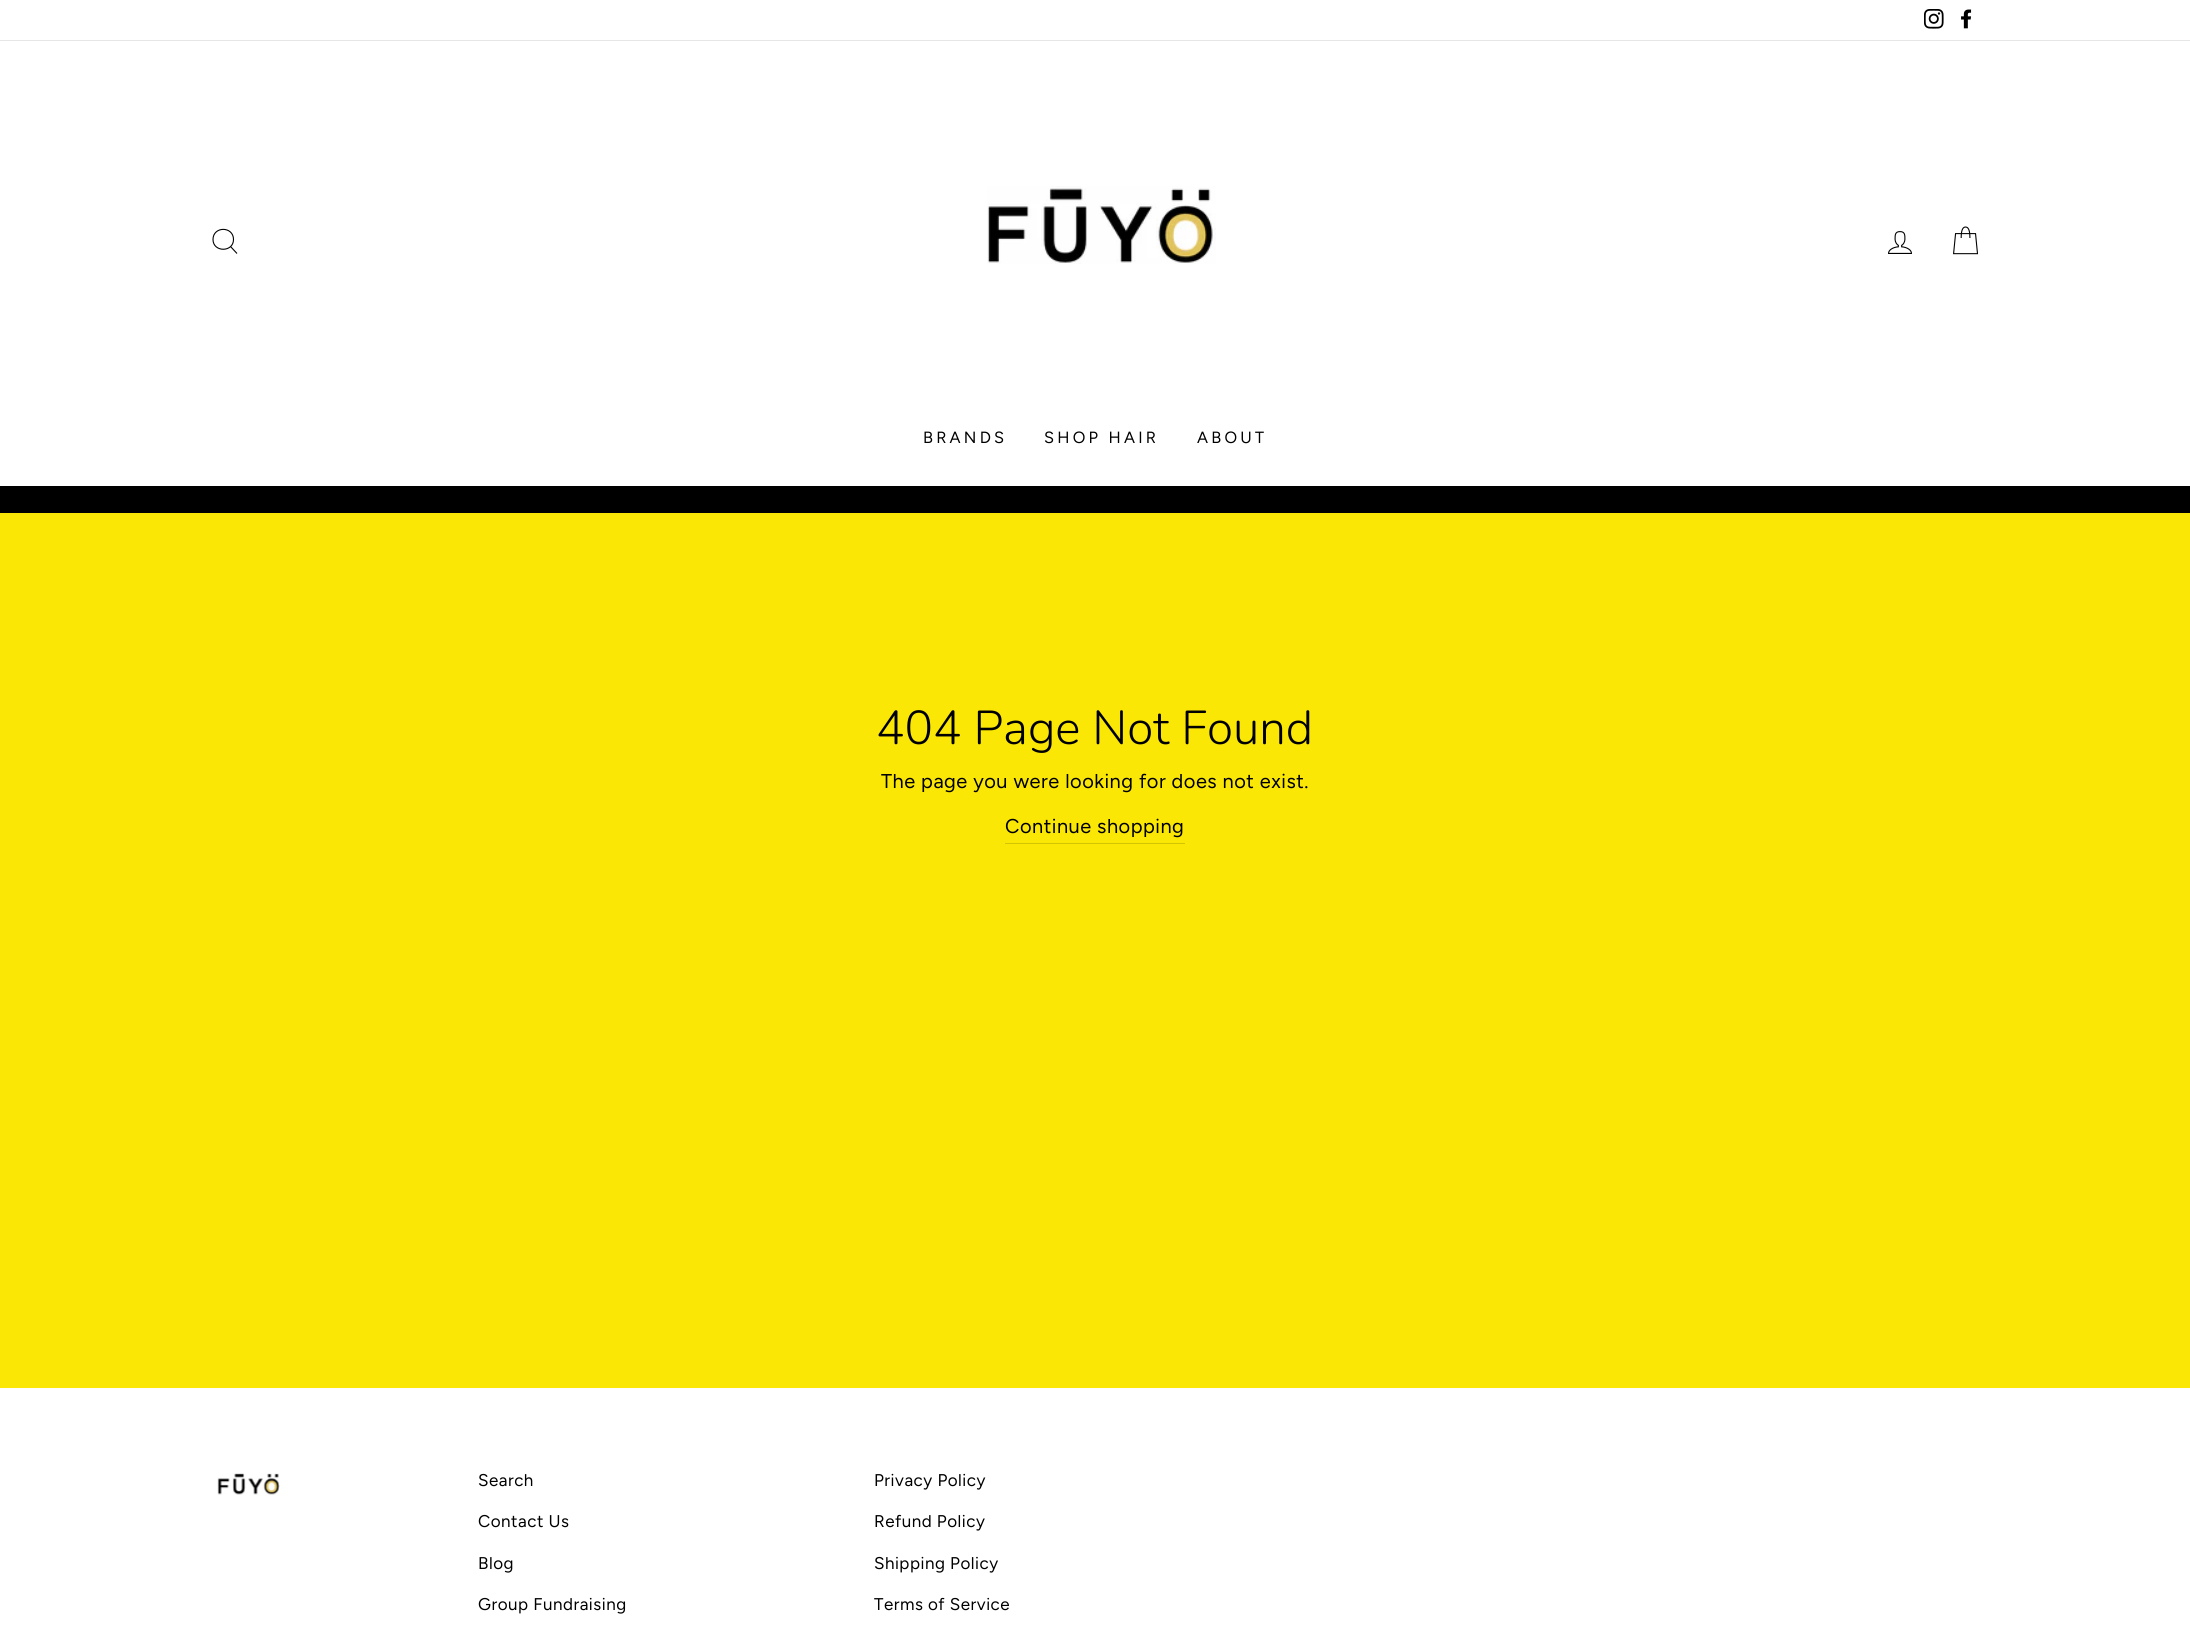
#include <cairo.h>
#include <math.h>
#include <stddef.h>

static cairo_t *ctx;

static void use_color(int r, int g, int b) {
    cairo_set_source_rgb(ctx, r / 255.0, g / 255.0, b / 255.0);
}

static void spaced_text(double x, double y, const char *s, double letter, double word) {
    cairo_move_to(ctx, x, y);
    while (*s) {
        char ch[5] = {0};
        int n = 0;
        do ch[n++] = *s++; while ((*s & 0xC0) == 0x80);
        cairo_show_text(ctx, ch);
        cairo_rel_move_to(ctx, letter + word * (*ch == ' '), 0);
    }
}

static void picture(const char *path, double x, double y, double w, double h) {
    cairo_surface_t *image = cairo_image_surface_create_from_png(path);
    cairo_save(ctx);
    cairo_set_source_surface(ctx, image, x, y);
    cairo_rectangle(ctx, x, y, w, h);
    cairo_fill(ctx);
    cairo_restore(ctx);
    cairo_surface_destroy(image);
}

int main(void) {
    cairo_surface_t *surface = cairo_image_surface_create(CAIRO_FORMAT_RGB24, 2190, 1629);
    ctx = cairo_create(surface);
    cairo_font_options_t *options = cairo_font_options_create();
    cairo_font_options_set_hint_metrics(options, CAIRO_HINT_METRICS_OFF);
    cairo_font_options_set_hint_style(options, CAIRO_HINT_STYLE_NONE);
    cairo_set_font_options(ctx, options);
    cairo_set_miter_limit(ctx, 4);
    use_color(251, 231, 5);
    cairo_paint(ctx);
    use_color(255, 255, 255);
    cairo_rectangle(ctx, 0, 0, 2190, 40);
    cairo_fill(ctx);
    picture("img1.png", 1924, 9, 20, 20);
    picture("img2.png", 1961, 9, 11, 20);
    cairo_rectangle(ctx, 0, 41, 2190, 445);
    cairo_fill(ctx);
    use_color(230, 230, 230);
    cairo_rectangle(ctx, 0, 40, 2190, 1);
    cairo_fill(ctx);
    cairo_new_path(ctx);
    cairo_move_to(ctx, 233.5, 239.5);
    cairo_curve_to(ctx, 233.5, 252.5, 213, 252.5, 213, 239.5);
    cairo_curve_to(ctx, 213, 226, 233.5, 226, 233.5, 239.5);
    cairo_close_path(ctx);
    cairo_move_to(ctx, 237, 253.5);
    cairo_line_to(ctx, 230.5, 246.5);
    use_color(0, 0, 0);
    cairo_set_line_width(ctx, 1.1);
    cairo_stroke(ctx);
    picture("img3.png", 987, 186, 229, 78);
    picture("img4.png", 1888, 231, 24, 23);
    picture("img5.png", 1953, 226, 26, 29);
    cairo_select_font_face(ctx, "Figtree", CAIRO_FONT_SLANT_NORMAL, CAIRO_FONT_WEIGHT_NORMAL);
    cairo_set_font_size(ctx, 16.25);
    spaced_text(923, 443, "BRANDS", 3.25, 0);
    spaced_text(1044, 443, "SHOP HAIR", 3.25, 0);
    spaced_text(1197, 443, "ABOUT", 3.25, 0);
    cairo_rectangle(ctx, 0, 486, 2190, 27);
    cairo_fill(ctx);
    cairo_select_font_face(ctx, "Nunito Light", CAIRO_FONT_SLANT_NORMAL, CAIRO_FONT_WEIGHT_NORMAL);
    cairo_set_font_size(ctx, 47.5);
    cairo_move_to(ctx, 876, 744);
    cairo_show_text(ctx, "404 Page Not Found");
    cairo_select_font_face(ctx, "Figtree", CAIRO_FONT_SLANT_NORMAL, CAIRO_FONT_WEIGHT_NORMAL);
    cairo_set_font_size(ctx, 20);
    spaced_text(881, 788, "The page you were looking for does not exist.", 0.5, 0);
    use_color(213, 196, 4);
    cairo_rectangle(ctx, 1005, 843, 180, 1);
    cairo_fill(ctx);
    use_color(0, 0, 0);
    spaced_text(1005, 833, "Continue shopping", 0.5, 0);
    use_color(255, 255, 255);
    cairo_rectangle(ctx, 0, 1388, 2190, 241);
    cairo_fill(ctx);
    picture("img6.png", 217, 1473, 63, 22);
    cairo_set_font_size(ctx, 17);
    use_color(0, 0, 0);
    spaced_text(478, 1486, "Search", 0.5, 0);
    spaced_text(478, 1527, "Contact Us", 0.5, 0);
    spaced_text(478, 1569, "Blog", 0.5, 0);
    spaced_text(478, 1610, "Group Fundraising", 0.5, 0);
    spaced_text(874, 1486, "Privacy Policy", 0.5, 0);
    spaced_text(874, 1527, "Refund Policy", 0.5, 0);
    spaced_text(874, 1569, "Shipping Policy", 0.5, 0);
    spaced_text(874, 1610, "Terms of Service", 0.5, 0);
    cairo_surface_write_to_png(surface, "result.png");
    cairo_font_options_destroy(options);
    cairo_destroy(ctx);
    cairo_surface_destroy(surface);
    return 0;
}
